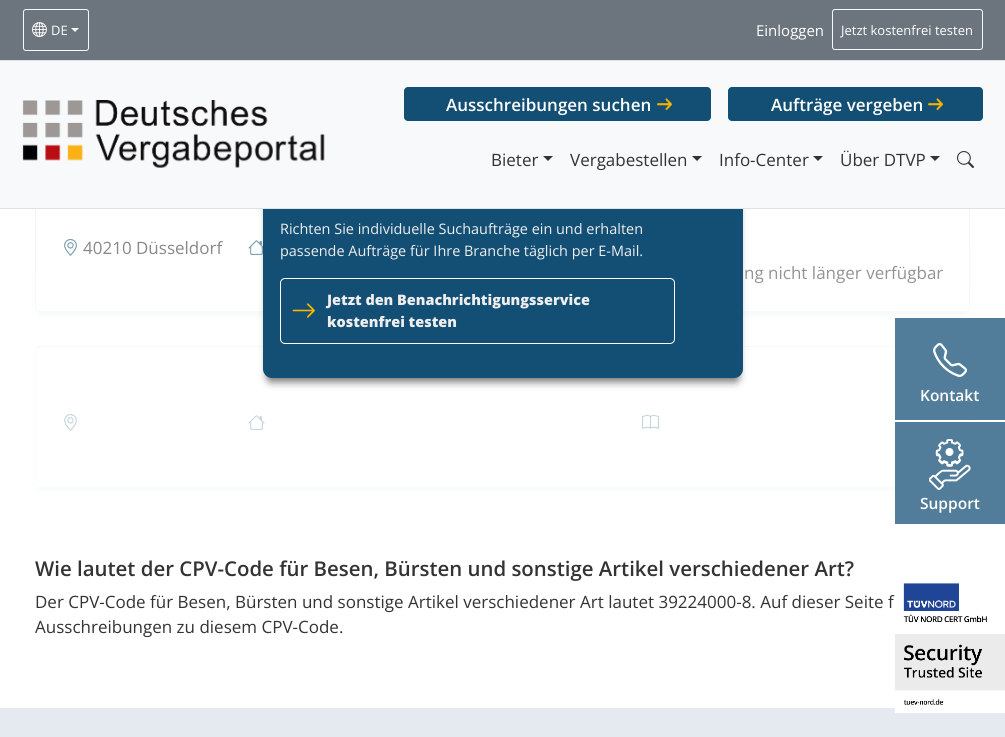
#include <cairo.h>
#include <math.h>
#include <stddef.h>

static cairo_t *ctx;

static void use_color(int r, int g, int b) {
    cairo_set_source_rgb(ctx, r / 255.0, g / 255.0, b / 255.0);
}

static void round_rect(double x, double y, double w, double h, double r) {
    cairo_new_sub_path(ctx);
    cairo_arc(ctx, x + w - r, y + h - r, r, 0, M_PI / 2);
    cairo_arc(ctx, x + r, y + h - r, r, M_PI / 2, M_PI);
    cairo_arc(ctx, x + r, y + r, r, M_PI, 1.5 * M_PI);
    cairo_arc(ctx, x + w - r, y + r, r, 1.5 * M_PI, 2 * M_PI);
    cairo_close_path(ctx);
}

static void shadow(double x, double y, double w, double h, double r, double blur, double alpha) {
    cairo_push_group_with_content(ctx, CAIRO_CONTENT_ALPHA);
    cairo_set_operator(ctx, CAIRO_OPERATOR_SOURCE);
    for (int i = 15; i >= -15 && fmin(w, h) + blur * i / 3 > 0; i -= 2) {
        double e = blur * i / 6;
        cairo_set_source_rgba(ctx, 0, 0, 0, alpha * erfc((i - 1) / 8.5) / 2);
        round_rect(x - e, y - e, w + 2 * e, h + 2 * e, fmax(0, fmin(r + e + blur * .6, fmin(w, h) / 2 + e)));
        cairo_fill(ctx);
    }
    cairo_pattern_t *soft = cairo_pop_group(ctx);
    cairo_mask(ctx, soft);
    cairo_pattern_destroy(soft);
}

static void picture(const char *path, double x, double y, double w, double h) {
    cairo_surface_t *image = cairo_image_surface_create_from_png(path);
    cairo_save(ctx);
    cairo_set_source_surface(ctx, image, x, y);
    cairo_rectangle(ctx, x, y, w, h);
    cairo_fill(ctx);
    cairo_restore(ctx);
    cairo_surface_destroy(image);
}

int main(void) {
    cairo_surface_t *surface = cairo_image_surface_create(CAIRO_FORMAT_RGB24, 1005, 737);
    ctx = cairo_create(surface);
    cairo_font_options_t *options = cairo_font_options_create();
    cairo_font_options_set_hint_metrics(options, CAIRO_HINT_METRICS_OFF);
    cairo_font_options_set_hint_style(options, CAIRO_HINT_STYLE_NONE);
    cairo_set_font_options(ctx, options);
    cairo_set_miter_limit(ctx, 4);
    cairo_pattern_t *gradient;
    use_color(255, 255, 255);
    cairo_paint(ctx);
    use_color(108, 117, 125);
    cairo_rectangle(ctx, 0, 0, 1005, 60);
    cairo_fill(ctx);
    use_color(222, 226, 230);
    cairo_rectangle(ctx, 0, 60, 1005, 1);
    cairo_fill(ctx);
    round_rect(23.5, 9.5, 65, 41, 2.5);
    use_color(248, 249, 250);
    cairo_set_line_width(ctx, 1);
    cairo_stroke(ctx);
    picture("img1.png", 32, 22, 15, 15);
    cairo_select_font_face(ctx, "Open Sans", CAIRO_FONT_SLANT_NORMAL, CAIRO_FONT_WEIGHT_NORMAL);
    cairo_set_font_size(ctx, 13);
    use_color(255, 255, 255);
    cairo_move_to(ctx, 51, 35);
    cairo_show_text(ctx, "DE");
    cairo_new_path(ctx);
    cairo_move_to(ctx, 71, 28);
    cairo_line_to(ctx, 79, 28);
    cairo_line_to(ctx, 75, 32);
    cairo_close_path(ctx);
    cairo_fill(ctx);
    cairo_set_font_size(ctx, 15);
    cairo_move_to(ctx, 756, 36);
    cairo_show_text(ctx, "Einloggen");
    round_rect(832.5, 9.5, 150, 40, 2.5);
    use_color(248, 249, 250);
    cairo_stroke(ctx);
    cairo_set_font_size(ctx, 13);
    use_color(255, 255, 255);
    cairo_move_to(ctx, 841, 35);
    cairo_show_text(ctx, "Jetzt kostenfrei testen");
    cairo_save(ctx);
    cairo_set_fill_rule(ctx, CAIRO_FILL_RULE_EVEN_ODD);
    cairo_new_path(ctx);
    cairo_move_to(ctx, 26, 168);
    cairo_line_to(ctx, 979, 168);
    cairo_line_to(ctx, 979, 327);
    cairo_line_to(ctx, 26, 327);
    cairo_close_path(ctx);
    cairo_move_to(ctx, 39, 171);
    cairo_line_to(ctx, 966, 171);
    cairo_curve_to(ctx, 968, 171, 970, 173, 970, 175);
    cairo_line_to(ctx, 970, 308);
    cairo_curve_to(ctx, 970, 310, 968, 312, 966, 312);
    cairo_line_to(ctx, 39, 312);
    cairo_curve_to(ctx, 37, 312, 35, 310, 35, 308);
    cairo_line_to(ctx, 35, 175);
    cairo_curve_to(ctx, 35, 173, 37, 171, 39, 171);
    cairo_close_path(ctx);
    cairo_clip(ctx);
    use_color(19, 79, 116);
    shadow(39, 181, 927, 133, 0, 4, 0.12);
    cairo_restore(ctx);
    round_rect(35.5, 171.5, 934, 140, 3.5);
    use_color(239, 239, 239);
    cairo_stroke(ctx);
    picture("img6.png", 64, 239, 13, 17);
    cairo_set_font_size(ctx, 17);
    use_color(51, 51, 51);
    cairo_move_to(ctx, 83, 254);
    cairo_show_text(ctx, "40210 Düsseldorf");
    picture("img7.png", 248, 240, 15, 15);
    cairo_move_to(ctx, 744, 279);
    cairo_show_text(ctx, "ng nicht länger verfügbar");
    cairo_save(ctx);
    cairo_set_fill_rule(ctx, CAIRO_FILL_RULE_EVEN_ODD);
    cairo_new_path(ctx);
    cairo_move_to(ctx, 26, 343);
    cairo_line_to(ctx, 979, 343);
    cairo_line_to(ctx, 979, 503);
    cairo_line_to(ctx, 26, 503);
    cairo_close_path(ctx);
    cairo_move_to(ctx, 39, 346);
    cairo_line_to(ctx, 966, 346);
    cairo_curve_to(ctx, 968, 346, 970, 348, 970, 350);
    cairo_line_to(ctx, 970, 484);
    cairo_curve_to(ctx, 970, 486, 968, 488, 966, 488);
    cairo_line_to(ctx, 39, 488);
    cairo_curve_to(ctx, 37, 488, 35, 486, 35, 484);
    cairo_line_to(ctx, 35, 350);
    cairo_curve_to(ctx, 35, 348, 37, 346, 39, 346);
    cairo_close_path(ctx);
    cairo_clip(ctx);
    use_color(19, 79, 116);
    shadow(39, 356, 927, 134, 0, 4, 0.12);
    cairo_restore(ctx);
    round_rect(35.5, 346.5, 934, 141, 3.5);
    use_color(239, 239, 239);
    cairo_stroke(ctx);
    picture("img6.png", 64, 414, 13, 17);
    picture("img8.png", 248, 415, 17, 15);
    picture("img9.png", 642, 415, 17, 14);
    gradient = cairo_pattern_create_linear(503, 66, 503, 505);
    cairo_pattern_add_color_stop_rgba(gradient, 0, 1, 1, 1, 0);
    cairo_pattern_add_color_stop_rgba(gradient, 0.75, 1, 1, 1, 0.75);
    cairo_set_source(ctx, gradient);
    cairo_pattern_destroy(gradient);
    cairo_rectangle(ctx, 34, 209, 937, 286);
    cairo_fill(ctx);
    use_color(119, 119, 119);
    shadow(267, 79, 472, 303, 4, 4, 1);
    use_color(19, 79, 116);
    round_rect(263, 66, 480, 312, 9);
    cairo_fill(ctx);
    use_color(248, 249, 250);
    cairo_rectangle(ctx, 0, 61, 1005, 147);
    cairo_fill(ctx);
    use_color(222, 226, 230);
    cairo_rectangle(ctx, 0, 208, 1005, 1);
    cairo_fill(ctx);
    picture("img2.png", 22, 100, 303, 68);
    use_color(19, 79, 116);
    round_rect(404, 87, 307, 34, 4);
    cairo_fill(ctx);
    cairo_select_font_face(ctx, "Open Sans SemiBold", CAIRO_FONT_SLANT_NORMAL, CAIRO_FONT_WEIGHT_NORMAL);
    use_color(255, 255, 255);
    cairo_move_to(ctx, 446, 111);
    cairo_show_text(ctx, "Ausschreibungen suchen");
    picture("img3.png", 657, 98, 15, 13);
    use_color(19, 79, 116);
    round_rect(728, 87, 255, 34, 4);
    cairo_fill(ctx);
    use_color(255, 255, 255);
    cairo_move_to(ctx, 771, 111);
    cairo_show_text(ctx, "Aufträge vergeben");
    picture("img3.png", 928, 98, 15, 13);
    cairo_select_font_face(ctx, "Open Sans", CAIRO_FONT_SLANT_NORMAL, CAIRO_FONT_WEIGHT_NORMAL);
    use_color(51, 51, 51);
    cairo_move_to(ctx, 491, 166);
    cairo_show_text(ctx, "Bieter");
    cairo_new_path(ctx);
    cairo_move_to(ctx, 543, 156);
    cairo_line_to(ctx, 553, 156);
    cairo_line_to(ctx, 548, 161);
    cairo_close_path(ctx);
    cairo_fill(ctx);
    cairo_move_to(ctx, 570, 166);
    cairo_show_text(ctx, "Vergabestellen");
    cairo_new_path(ctx);
    cairo_move_to(ctx, 692, 156);
    cairo_line_to(ctx, 702, 156);
    cairo_line_to(ctx, 697, 161);
    cairo_close_path(ctx);
    cairo_fill(ctx);
    cairo_move_to(ctx, 719, 166);
    cairo_show_text(ctx, "Info-Center");
    cairo_new_path(ctx);
    cairo_move_to(ctx, 813, 156);
    cairo_line_to(ctx, 823, 156);
    cairo_line_to(ctx, 818, 161);
    cairo_close_path(ctx);
    cairo_fill(ctx);
    cairo_move_to(ctx, 840, 166);
    cairo_show_text(ctx, "Über DTVP");
    cairo_new_path(ctx);
    cairo_move_to(ctx, 930, 156);
    cairo_line_to(ctx, 940, 156);
    cairo_line_to(ctx, 935, 161);
    cairo_close_path(ctx);
    cairo_fill(ctx);
    picture("img4.png", 957, 151, 17, 17);
    cairo_set_font_size(ctx, 14.45);
    use_color(238, 238, 238);
    cairo_move_to(ctx, 280, 234);
    cairo_show_text(ctx, "Richten Sie individuelle Suchaufträge ein und erhalten");
    cairo_move_to(ctx, 280, 256);
    cairo_show_text(ctx, "passende Aufträge für Ihre Branche täglich per E-Mail.");
    round_rect(280.5, 278.5, 394, 65, 4.5);
    use_color(255, 255, 255);
    cairo_stroke(ctx);
    cairo_select_font_face(ctx, "Open Sans ExtraBold", CAIRO_FONT_SLANT_NORMAL, CAIRO_FONT_WEIGHT_NORMAL);
    use_color(238, 238, 238);
    cairo_move_to(ctx, 327, 305);
    cairo_show_text(ctx, "Jetzt den Benachrichtigungsservice");
    picture("img5.png", 292, 303, 23, 15);
    cairo_move_to(ctx, 327, 327);
    cairo_show_text(ctx, "kostenfrei testen");
    cairo_select_font_face(ctx, "Open Sans SemiBold", CAIRO_FONT_SLANT_NORMAL, CAIRO_FONT_WEIGHT_NORMAL);
    cairo_set_font_size(ctx, 20.4);
    use_color(51, 51, 51);
    cairo_move_to(ctx, 35, 576);
    cairo_show_text(ctx, "Wie lautet der CPV-Code für Besen, Bürsten und sonstige Artikel verschiedener Art?");
    cairo_select_font_face(ctx, "Open Sans", CAIRO_FONT_SLANT_NORMAL, CAIRO_FONT_WEIGHT_NORMAL);
    cairo_set_font_size(ctx, 17);
    cairo_move_to(ctx, 35, 608);
    cairo_show_text(ctx, "Der CPV-Code für Besen, Bürsten und sonstige Artikel verschiedener Art lautet 39224000-8. Auf dieser Seite f");
    cairo_move_to(ctx, 35, 633);
    cairo_show_text(ctx, "Ausschreibungen zu diesem CPV-Code.");
    use_color(228, 234, 240);
    cairo_rectangle(ctx, 0, 708, 1005, 29);
    cairo_fill(ctx);
    use_color(81, 125, 154);
    cairo_rectangle(ctx, 895, 318, 110, 102);
    cairo_fill(ctx);
    picture("img10.png", 933, 343, 34, 34);
    cairo_select_font_face(ctx, "Open Sans SemiBold", CAIRO_FONT_SLANT_NORMAL, CAIRO_FONT_WEIGHT_NORMAL);
    cairo_set_font_size(ctx, 15.5);
    use_color(255, 255, 255);
    cairo_move_to(ctx, 920, 401);
    cairo_show_text(ctx, "Kontakt");
    use_color(81, 125, 154);
    cairo_rectangle(ctx, 895, 422, 110, 102);
    cairo_fill(ctx);
    picture("img11.png", 929, 439, 42, 51);
    use_color(255, 255, 255);
    cairo_move_to(ctx, 920, 509);
    cairo_show_text(ctx, "Support");
    picture("img12.png", 895, 575, 110, 138);
    cairo_surface_write_to_png(surface, "result.png");
    cairo_font_options_destroy(options);
    cairo_destroy(ctx);
    cairo_surface_destroy(surface);
    return 0;
}
